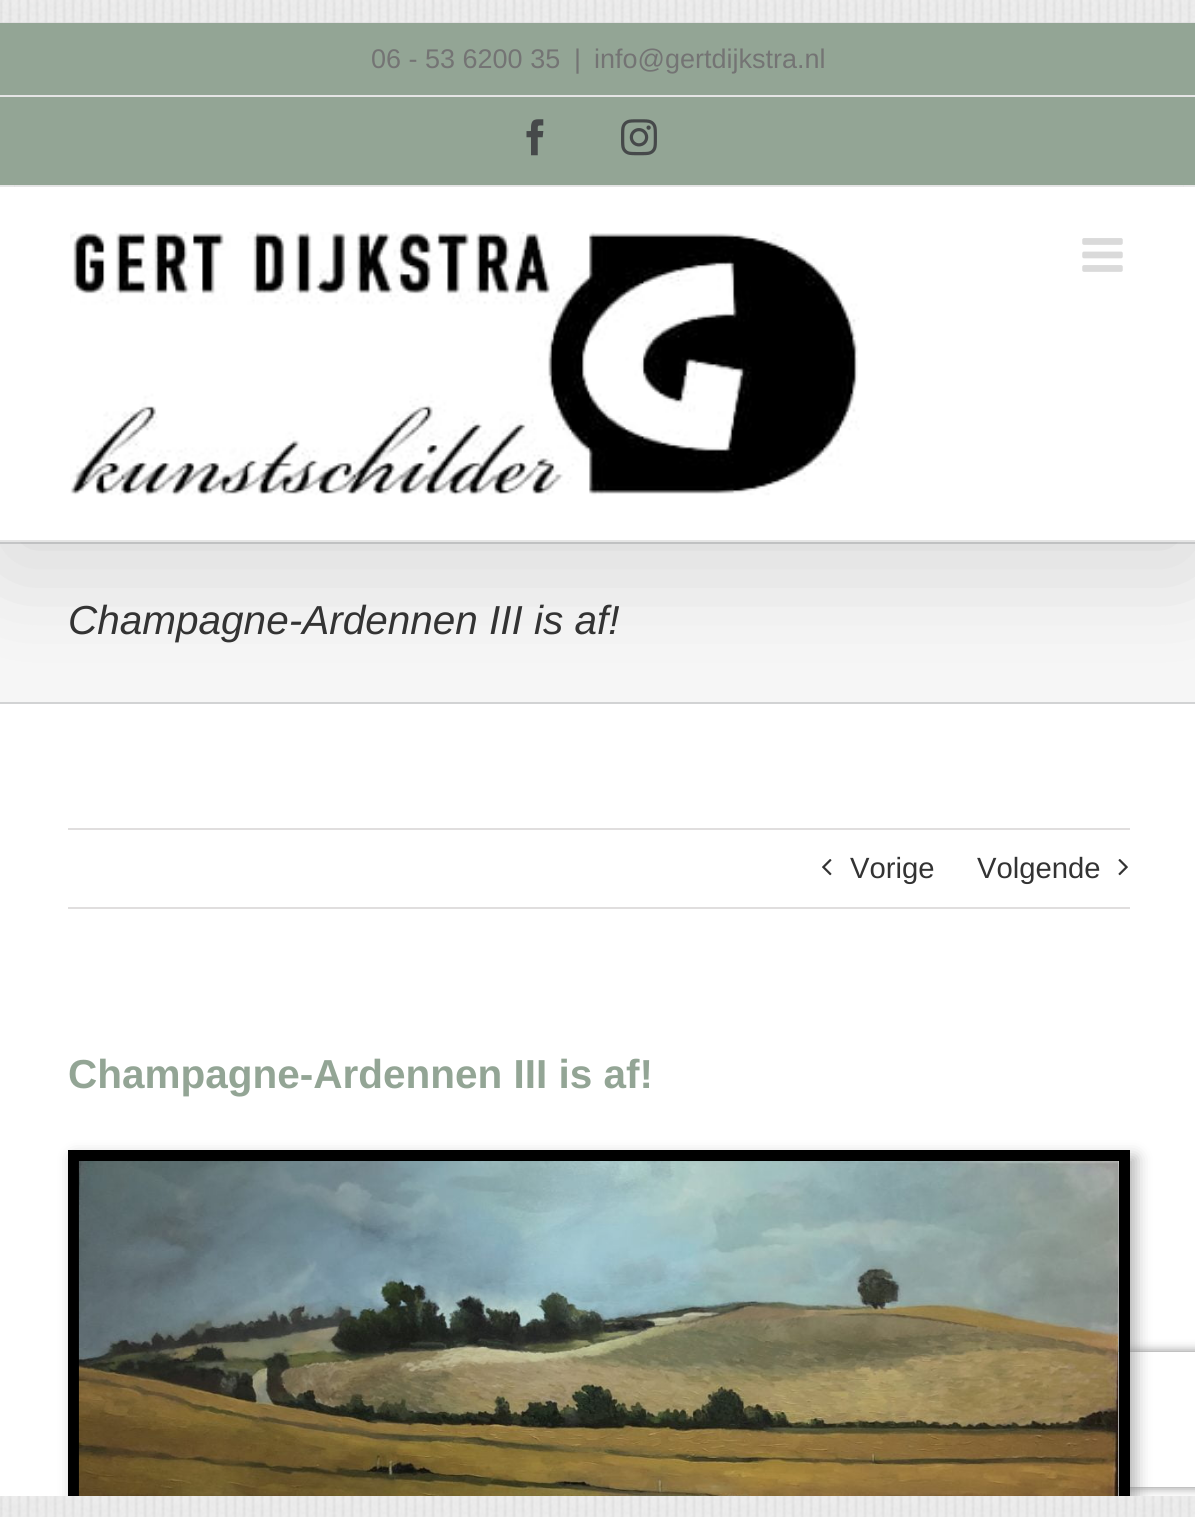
#include <cairo.h>
#include <math.h>
#include <stddef.h>

static cairo_t *ctx;

static void use_color(int r, int g, int b) {
    cairo_set_source_rgb(ctx, r / 255.0, g / 255.0, b / 255.0);
}

static void round_rect(double x, double y, double w, double h, double r) {
    cairo_new_sub_path(ctx);
    cairo_arc(ctx, x + w - r, y + h - r, r, 0, M_PI / 2);
    cairo_arc(ctx, x + r, y + h - r, r, M_PI / 2, M_PI);
    cairo_arc(ctx, x + r, y + r, r, M_PI, 1.5 * M_PI);
    cairo_arc(ctx, x + w - r, y + r, r, 1.5 * M_PI, 2 * M_PI);
    cairo_close_path(ctx);
}

static void shadow(double x, double y, double w, double h, double r, double blur, double alpha) {
    cairo_push_group_with_content(ctx, CAIRO_CONTENT_ALPHA);
    cairo_set_operator(ctx, CAIRO_OPERATOR_SOURCE);
    for (int i = 15; i >= -15 && fmin(w, h) + blur * i / 3 > 0; i -= 2) {
        double e = blur * i / 6;
        cairo_set_source_rgba(ctx, 0, 0, 0, alpha * erfc((i - 1) / 8.5) / 2);
        round_rect(x - e, y - e, w + 2 * e, h + 2 * e, fmax(0, fmin(r + e + blur * .6, fmin(w, h) / 2 + e)));
        cairo_fill(ctx);
    }
    cairo_pattern_t *soft = cairo_pop_group(ctx);
    cairo_mask(ctx, soft);
    cairo_pattern_destroy(soft);
}

static void picture(const char *path, double x, double y, double w, double h) {
    cairo_surface_t *image = cairo_image_surface_create_from_png(path);
    cairo_save(ctx);
    cairo_set_source_surface(ctx, image, x, y);
    cairo_rectangle(ctx, x, y, w, h);
    cairo_fill(ctx);
    cairo_restore(ctx);
    cairo_surface_destroy(image);
}

int main(void) {
    cairo_surface_t *surface = cairo_image_surface_create(CAIRO_FORMAT_RGB24, 1195, 1517);
    ctx = cairo_create(surface);
    cairo_font_options_t *options = cairo_font_options_create();
    cairo_font_options_set_hint_metrics(options, CAIRO_HINT_METRICS_OFF);
    cairo_font_options_set_hint_style(options, CAIRO_HINT_STYLE_NONE);
    cairo_set_font_options(ctx, options);
    cairo_set_miter_limit(ctx, 4);
    use_color(246, 246, 246);
    cairo_paint(ctx);
    use_color(210, 211, 212);
    cairo_rectangle(ctx, 0, 542, 1195, 2);
    cairo_fill(ctx);
    cairo_rectangle(ctx, 0, 702, 1195, 2);
    cairo_fill(ctx);
    use_color(255, 255, 255);
    cairo_rectangle(ctx, 0, 704, 1195, 792);
    cairo_fill(ctx);
    use_color(0, 0, 0);
    shadow(5, 50, 1188, 510, 0, 56, 0.14);
    use_color(215, 214, 214);
    cairo_rectangle(ctx, 0, 22, 1195, 1);
    cairo_fill(ctx);
    picture("img1.png", 0, 0, 1195, 23);
    use_color(147, 165, 149);
    cairo_rectangle(ctx, 0, 23, 1195, 162);
    cairo_fill(ctx);
    use_color(229, 229, 229);
    cairo_rectangle(ctx, 15, 185, 1168, 2);
    cairo_fill(ctx);
    cairo_rectangle(ctx, 0, 95, 1195, 2);
    cairo_fill(ctx);
    cairo_select_font_face(ctx, "Liberation Sans", CAIRO_FONT_SLANT_NORMAL, CAIRO_FONT_WEIGHT_NORMAL);
    cairo_set_font_size(ctx, 27);
    use_color(116, 116, 116);
    cairo_move_to(ctx, 371, 68);
    cairo_show_text(ctx, "06 - 53 6200 35");
    cairo_move_to(ctx, 574, 68);
    cairo_show_text(ctx, "|");
    cairo_move_to(ctx, 594, 68);
    cairo_show_text(ctx, "info@gertdijkstra.nl");
    picture("img2.png", 526, 119, 18, 37);
    picture("img3.png", 621, 119, 36, 37);
    use_color(255, 255, 255);
    cairo_rectangle(ctx, 0, 187, 1195, 353);
    cairo_fill(ctx);
    use_color(229, 229, 229);
    cairo_rectangle(ctx, 0, 540, 1195, 2);
    cairo_fill(ctx);
    picture("img4.png", 70, 231, 790, 265);
    picture("img5.png", 1082, 238, 41, 34);
    cairo_select_font_face(ctx, "Liberation Sans", CAIRO_FONT_SLANT_ITALIC, CAIRO_FONT_WEIGHT_NORMAL);
    cairo_set_font_size(ctx, 40.5);
    use_color(51, 51, 51);
    cairo_move_to(ctx, 68, 634);
    cairo_show_text(ctx, "Champagne-Ardennen III is af!");
    use_color(224, 222, 222);
    cairo_rectangle(ctx, 68, 828, 1062, 2);
    cairo_fill(ctx);
    cairo_rectangle(ctx, 68, 907, 1062, 2);
    cairo_fill(ctx);
    picture("img6.png", 822, 859, 10, 17);
    cairo_select_font_face(ctx, "Liberation Sans", CAIRO_FONT_SLANT_NORMAL, CAIRO_FONT_WEIGHT_NORMAL);
    cairo_set_font_size(ctx, 29.25);
    use_color(51, 51, 51);
    cairo_move_to(ctx, 850, 878);
    cairo_show_text(ctx, "Vorige");
    cairo_move_to(ctx, 977, 878);
    cairo_show_text(ctx, "Volgende");
    picture("img7.png", 1118, 859, 10, 17);
    cairo_select_font_face(ctx, "Liberation Sans", CAIRO_FONT_SLANT_NORMAL, CAIRO_FONT_WEIGHT_BOLD);
    cairo_set_font_size(ctx, 40.5);
    use_color(147, 165, 149);
    cairo_move_to(ctx, 68, 1088);
    cairo_show_text(ctx, "Champagne-Ardennen III is af!");
    use_color(0, 0, 0);
    shadow(74, 1157, 1062, 360, 0, 8, 0.3);
    cairo_save(ctx);
    cairo_set_fill_rule(ctx, CAIRO_FILL_RULE_EVEN_ODD);
    cairo_new_path(ctx);
    cairo_move_to(ctx, 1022, 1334);
    cairo_line_to(ctx, 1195, 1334);
    cairo_line_to(ctx, 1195, 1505);
    cairo_line_to(ctx, 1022, 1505);
    cairo_close_path(ctx);
    cairo_move_to(ctx, 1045, 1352);
    cairo_line_to(ctx, 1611, 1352);
    cairo_curve_to(ctx, 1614, 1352, 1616, 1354, 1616, 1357);
    cairo_line_to(ctx, 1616, 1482);
    cairo_curve_to(ctx, 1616, 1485, 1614, 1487, 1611, 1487);
    cairo_line_to(ctx, 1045, 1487);
    cairo_curve_to(ctx, 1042, 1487, 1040, 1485, 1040, 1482);
    cairo_line_to(ctx, 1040, 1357);
    cairo_curve_to(ctx, 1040, 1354, 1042, 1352, 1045, 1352);
    cairo_close_path(ctx);
    cairo_clip(ctx);
    use_color(128, 128, 128);
    shadow(1040, 1352, 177, 135, 5, 5.5, 1);
    cairo_restore(ctx);
    cairo_rectangle(ctx, 73.5, 1155.5, 1051, 349);
    use_color(0, 0, 0);
    cairo_set_line_width(ctx, 11);
    cairo_stroke(ctx);
    picture("img8.png", 78, 1161, 1041, 335);
    picture("img9.png", 0, 1496, 1195, 21);
    cairo_surface_write_to_png(surface, "result.png");
    cairo_font_options_destroy(options);
    cairo_destroy(ctx);
    cairo_surface_destroy(surface);
    return 0;
}
